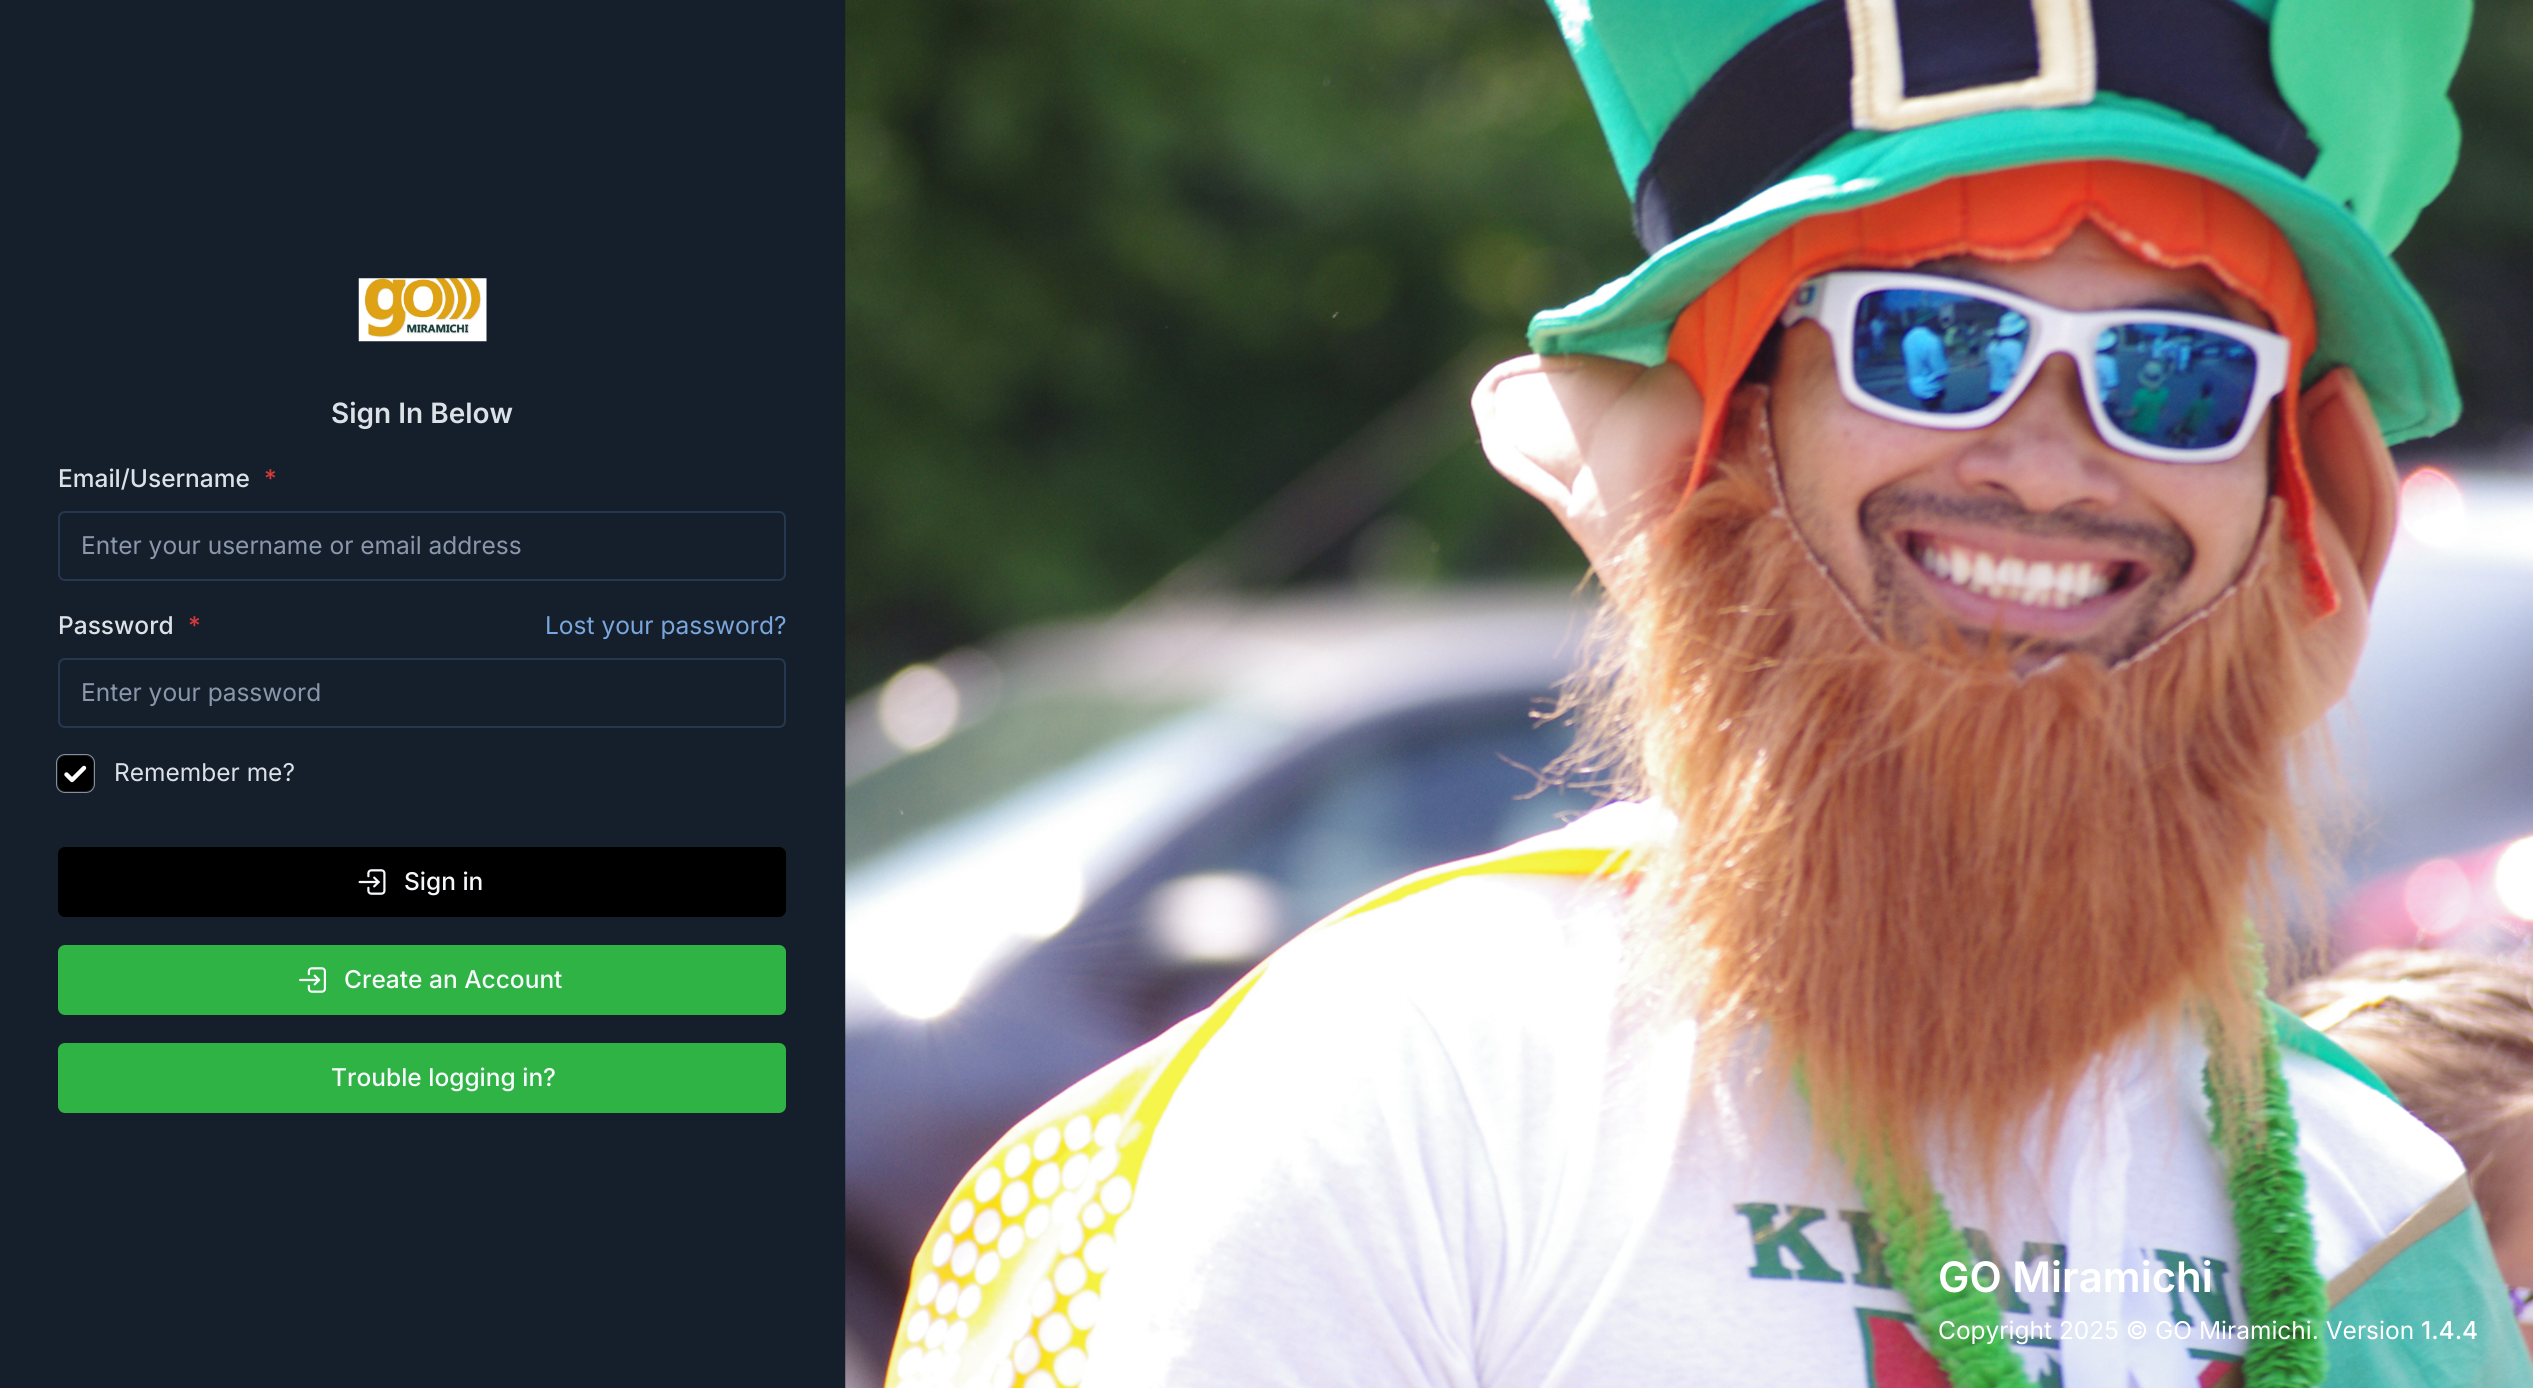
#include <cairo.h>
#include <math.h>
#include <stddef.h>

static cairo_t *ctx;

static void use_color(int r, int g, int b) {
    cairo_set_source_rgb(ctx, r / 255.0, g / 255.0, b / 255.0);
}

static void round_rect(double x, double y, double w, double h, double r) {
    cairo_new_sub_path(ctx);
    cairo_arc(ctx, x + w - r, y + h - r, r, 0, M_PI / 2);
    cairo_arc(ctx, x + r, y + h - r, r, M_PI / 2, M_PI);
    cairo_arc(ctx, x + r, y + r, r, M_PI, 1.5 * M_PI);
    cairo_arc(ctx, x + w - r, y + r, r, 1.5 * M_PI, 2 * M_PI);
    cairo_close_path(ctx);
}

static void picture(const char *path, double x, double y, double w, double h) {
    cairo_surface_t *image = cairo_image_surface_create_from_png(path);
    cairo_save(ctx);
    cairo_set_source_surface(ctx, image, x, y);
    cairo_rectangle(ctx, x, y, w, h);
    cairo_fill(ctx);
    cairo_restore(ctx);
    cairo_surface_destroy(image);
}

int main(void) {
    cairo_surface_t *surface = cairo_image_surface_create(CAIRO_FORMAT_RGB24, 2533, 1388);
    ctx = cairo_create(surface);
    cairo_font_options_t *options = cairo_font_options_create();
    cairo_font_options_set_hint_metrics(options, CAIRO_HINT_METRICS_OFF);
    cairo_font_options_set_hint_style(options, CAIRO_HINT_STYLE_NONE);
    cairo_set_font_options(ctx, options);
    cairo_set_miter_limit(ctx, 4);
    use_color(21, 31, 44);
    cairo_paint(ctx);
    picture("img1.png", 358, 278, 129, 64);
    cairo_select_font_face(ctx, "Inter SemiBold", CAIRO_FONT_SLANT_NORMAL, CAIRO_FONT_WEIGHT_NORMAL);
    cairo_set_font_size(ctx, 28);
    use_color(220, 225, 231);
    cairo_move_to(ctx, 331, 423);
    cairo_show_text(ctx, "Sign In Below");
    cairo_select_font_face(ctx, "Inter Medium", CAIRO_FONT_SLANT_NORMAL, CAIRO_FONT_WEIGHT_NORMAL);
    cairo_set_font_size(ctx, 24.5);
    cairo_move_to(ctx, 58, 487);
    cairo_show_text(ctx, "Email/Username");
    use_color(214, 57, 57);
    cairo_move_to(ctx, 264, 487);
    cairo_show_text(ctx, "*");
    round_rect(59, 512, 726, 68, 6);
    use_color(37, 56, 79);
    cairo_stroke(ctx);
    cairo_select_font_face(ctx, "Inter", CAIRO_FONT_SLANT_NORMAL, CAIRO_FONT_WEIGHT_NORMAL);
    use_color(138, 151, 171);
    cairo_move_to(ctx, 81, 554);
    cairo_show_text(ctx, "Enter your username or email address");
    cairo_select_font_face(ctx, "Inter Medium", CAIRO_FONT_SLANT_NORMAL, CAIRO_FONT_WEIGHT_NORMAL);
    use_color(220, 225, 231);
    cairo_move_to(ctx, 58, 634);
    cairo_show_text(ctx, "Password");
    use_color(214, 57, 57);
    cairo_move_to(ctx, 188, 634);
    cairo_show_text(ctx, "*");
    cairo_select_font_face(ctx, "Inter", CAIRO_FONT_SLANT_NORMAL, CAIRO_FONT_WEIGHT_NORMAL);
    use_color(121, 166, 220);
    cairo_move_to(ctx, 545, 634);
    cairo_show_text(ctx, "Lost your password?");
    round_rect(59, 659, 726, 68, 6);
    use_color(37, 56, 79);
    cairo_stroke(ctx);
    use_color(138, 151, 171);
    cairo_move_to(ctx, 81, 701);
    cairo_show_text(ctx, "Enter your password");
    round_rect(56.5, 754.5, 38, 38, 8.5);
    use_color(138, 143, 150);
    cairo_set_line_width(ctx, 1);
    cairo_stroke(ctx);
    use_color(0, 0, 0);
    round_rect(58, 756, 35, 35, 7);
    cairo_fill(ctx);
    cairo_new_path(ctx);
    cairo_move_to(ctx, 66.5, 774.5);
    cairo_line_to(ctx, 72, 780);
    cairo_line_to(ctx, 84, 768);
    use_color(255, 255, 255);
    cairo_set_line_width(ctx, 4.4);
    cairo_set_line_cap(ctx, CAIRO_LINE_CAP_ROUND);
    cairo_set_line_join(ctx, CAIRO_LINE_JOIN_ROUND);
    cairo_stroke(ctx);
    use_color(220, 225, 231);
    cairo_move_to(ctx, 114, 781);
    cairo_show_text(ctx, "Remember me?");
    use_color(0, 0, 0);
    round_rect(58, 847, 728, 70, 7);
    cairo_fill(ctx);
    picture("img2.png", 358, 869, 28, 26);
    cairo_select_font_face(ctx, "Inter Medium", CAIRO_FONT_SLANT_NORMAL, CAIRO_FONT_WEIGHT_NORMAL);
    use_color(246, 248, 251);
    cairo_move_to(ctx, 404, 890);
    cairo_show_text(ctx, "Sign in");
    use_color(47, 179, 68);
    round_rect(58, 945, 728, 70, 7);
    cairo_fill(ctx);
    picture("img3.png", 299, 967, 27, 26);
    use_color(246, 248, 251);
    cairo_move_to(ctx, 344, 988);
    cairo_show_text(ctx, "Create an Account");
    use_color(47, 179, 68);
    round_rect(58, 1043, 728, 70, 7);
    cairo_fill(ctx);
    use_color(246, 248, 251);
    cairo_move_to(ctx, 331, 1086);
    cairo_show_text(ctx, "Trouble logging in?");
    picture("img4.png", 845, 0, 1688, 1388);
    cairo_select_font_face(ctx, "Inter SemiBold", CAIRO_FONT_SLANT_NORMAL, CAIRO_FONT_WEIGHT_NORMAL);
    cairo_set_font_size(ctx, 42);
    use_color(255, 255, 255);
    cairo_move_to(ctx, 1938, 1292);
    cairo_show_text(ctx, "GO Miramichi");
    cairo_select_font_face(ctx, "Inter", CAIRO_FONT_SLANT_NORMAL, CAIRO_FONT_WEIGHT_NORMAL);
    cairo_set_font_size(ctx, 24.5);
    cairo_move_to(ctx, 1938, 1339);
    cairo_show_text(ctx, "Copyright 2025 © GO Miramichi. Version");
    cairo_select_font_face(ctx, "Inter Medium", CAIRO_FONT_SLANT_NORMAL, CAIRO_FONT_WEIGHT_NORMAL);
    cairo_move_to(ctx, 2421, 1339);
    cairo_show_text(ctx, "1.4.4");
    cairo_surface_write_to_png(surface, "result.png");
    cairo_font_options_destroy(options);
    cairo_destroy(ctx);
    cairo_surface_destroy(surface);
    return 0;
}
